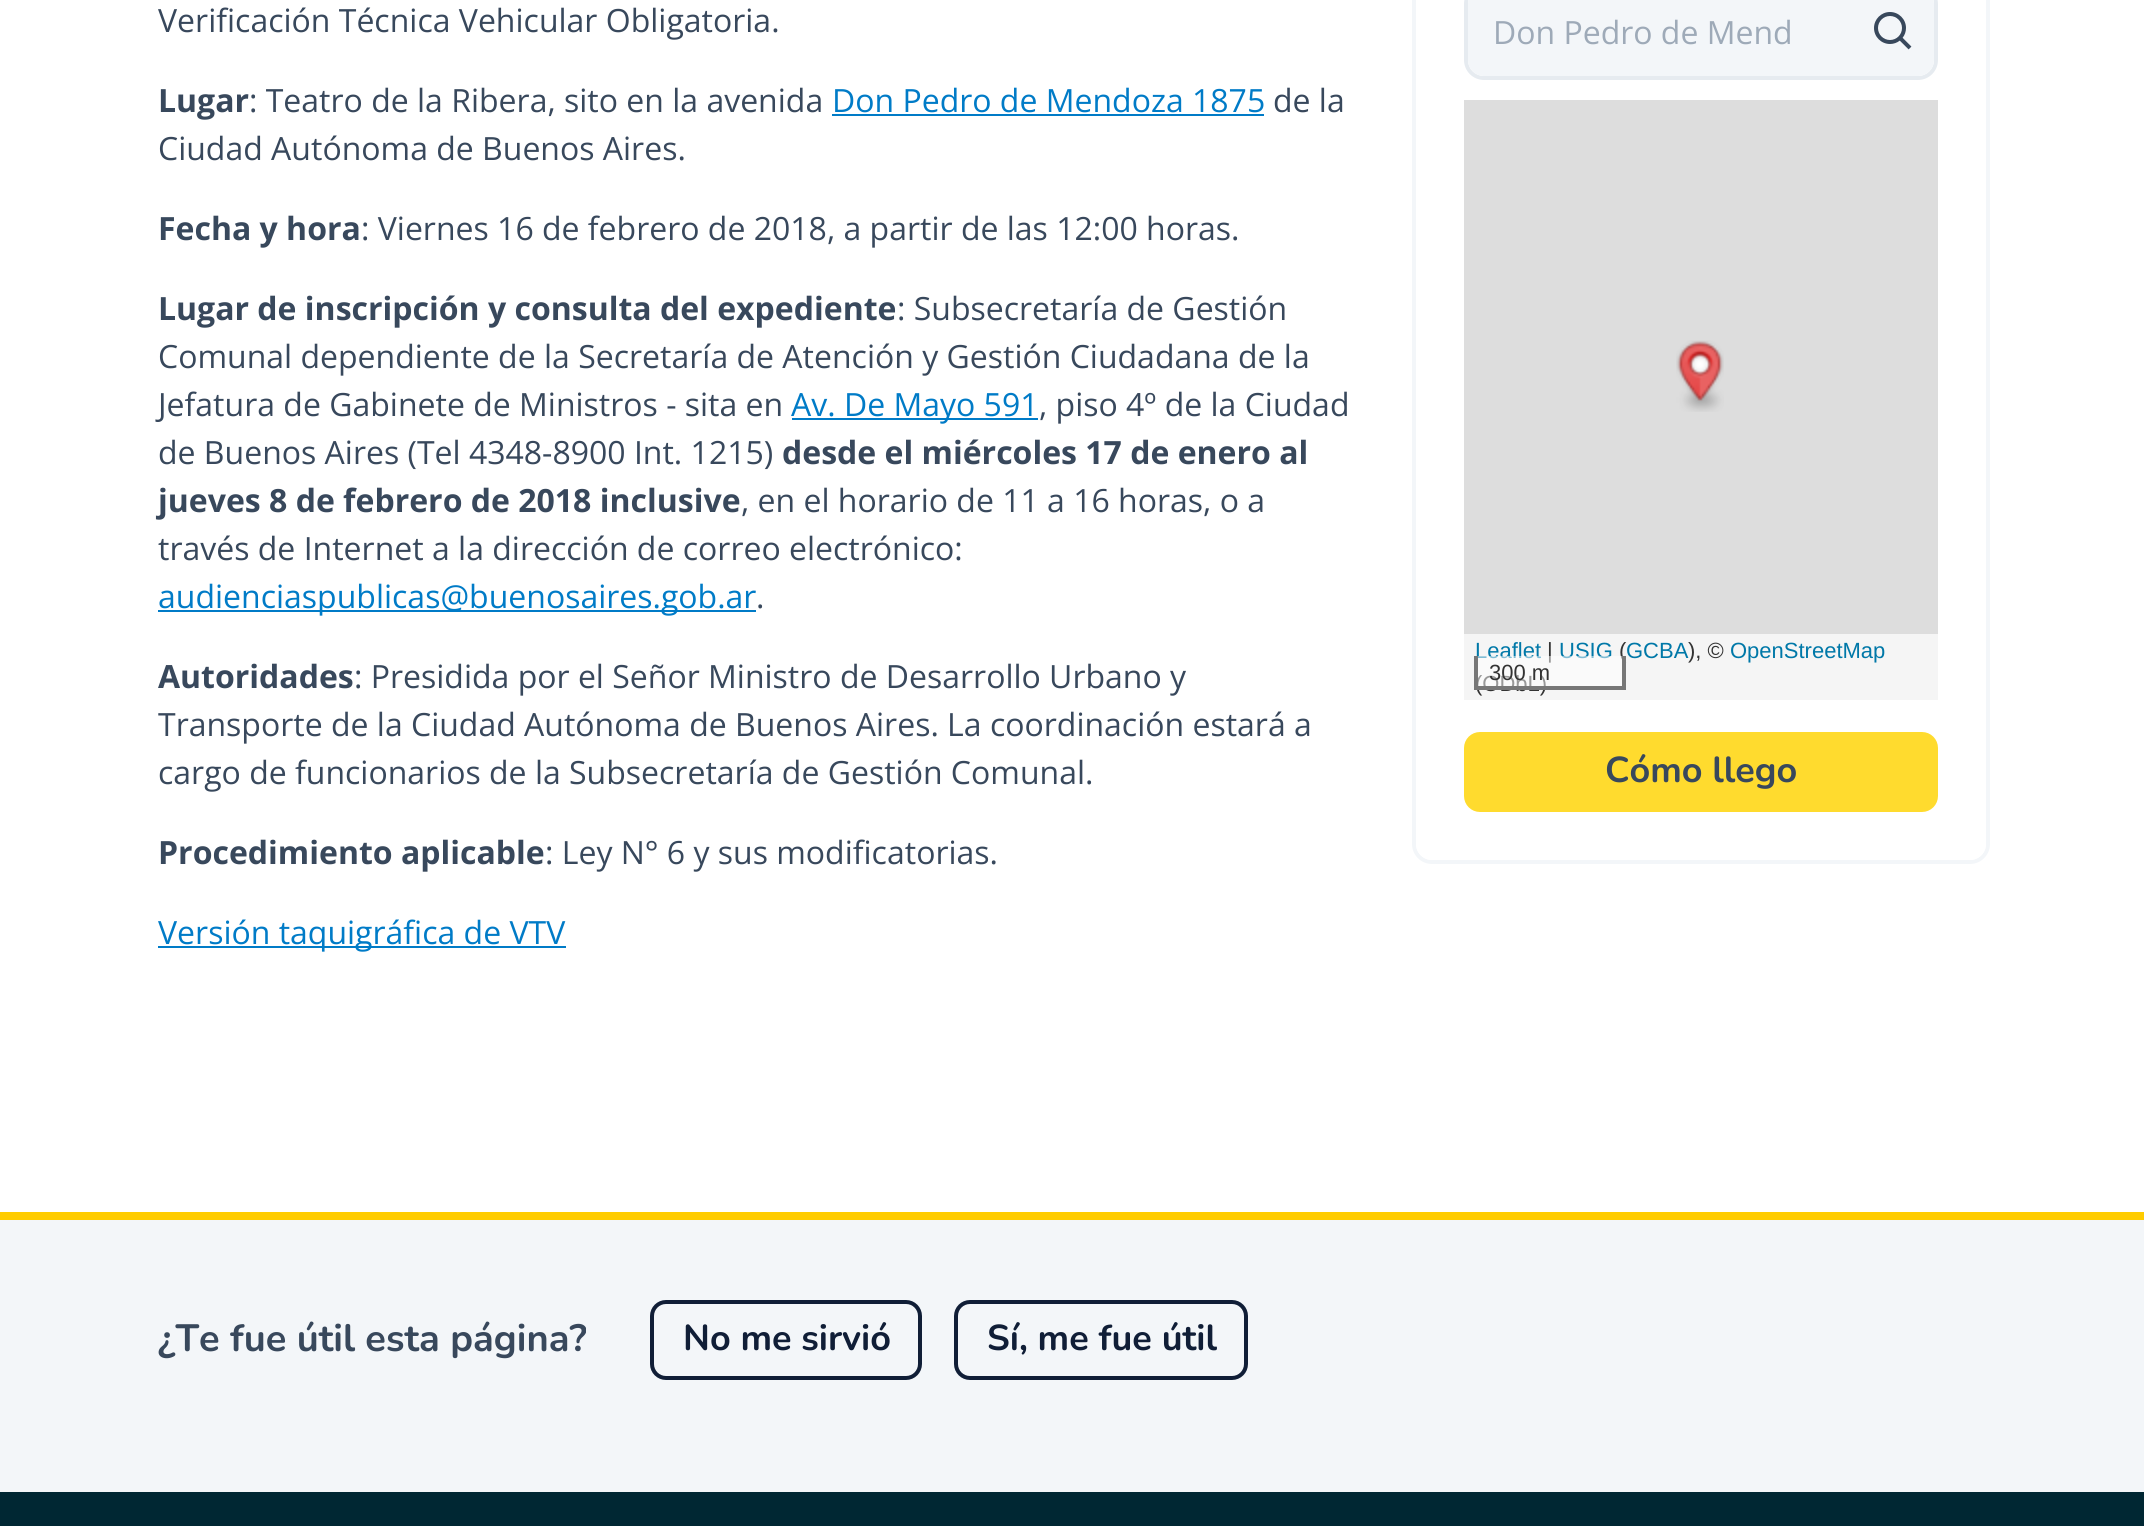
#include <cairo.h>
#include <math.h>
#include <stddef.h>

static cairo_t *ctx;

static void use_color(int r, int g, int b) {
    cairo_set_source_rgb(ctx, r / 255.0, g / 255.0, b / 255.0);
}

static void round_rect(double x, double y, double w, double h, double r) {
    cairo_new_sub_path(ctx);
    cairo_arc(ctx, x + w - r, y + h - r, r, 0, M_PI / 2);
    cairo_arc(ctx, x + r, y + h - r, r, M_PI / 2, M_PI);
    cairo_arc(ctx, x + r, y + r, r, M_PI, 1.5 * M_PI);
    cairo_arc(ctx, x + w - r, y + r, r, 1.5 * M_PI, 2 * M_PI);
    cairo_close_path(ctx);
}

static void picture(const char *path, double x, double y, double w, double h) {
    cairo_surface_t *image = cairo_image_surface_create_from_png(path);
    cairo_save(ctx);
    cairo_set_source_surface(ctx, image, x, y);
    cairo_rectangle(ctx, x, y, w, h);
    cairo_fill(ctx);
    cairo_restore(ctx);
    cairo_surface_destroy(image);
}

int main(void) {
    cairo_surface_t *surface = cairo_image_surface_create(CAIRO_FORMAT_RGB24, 2144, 1526);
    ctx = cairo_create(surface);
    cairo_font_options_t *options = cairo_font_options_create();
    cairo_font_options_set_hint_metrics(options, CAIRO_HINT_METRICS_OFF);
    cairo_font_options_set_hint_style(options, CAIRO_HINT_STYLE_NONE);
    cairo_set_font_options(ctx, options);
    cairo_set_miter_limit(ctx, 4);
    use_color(255, 255, 255);
    cairo_paint(ctx);
    cairo_select_font_face(ctx, "Open Sans", CAIRO_FONT_SLANT_NORMAL, CAIRO_FONT_WEIGHT_NORMAL);
    cairo_set_font_size(ctx, 32);
    use_color(56, 72, 92);
    cairo_move_to(ctx, 158, 32);
    cairo_show_text(ctx, "Verificación Técnica Vehicular Obligatoria.");
    cairo_select_font_face(ctx, "Open Sans", CAIRO_FONT_SLANT_NORMAL, CAIRO_FONT_WEIGHT_BOLD);
    cairo_move_to(ctx, 158, 112);
    cairo_show_text(ctx, "Lugar");
    cairo_select_font_face(ctx, "Open Sans", CAIRO_FONT_SLANT_NORMAL, CAIRO_FONT_WEIGHT_NORMAL);
    cairo_move_to(ctx, 249, 112);
    cairo_show_text(ctx, ": Teatro de la Ribera, sito en la avenida");
    use_color(0, 123, 199);
    cairo_move_to(ctx, 832, 112);
    cairo_show_text(ctx, "Don Pedro de Mendoza 1875");
    cairo_rectangle(ctx, 832, 114, 432, 2);
    cairo_fill(ctx);
    use_color(56, 72, 92);
    cairo_move_to(ctx, 1273, 112);
    cairo_show_text(ctx, "de la");
    cairo_move_to(ctx, 158, 160);
    cairo_show_text(ctx, "Ciudad Autónoma de Buenos Aires.");
    cairo_select_font_face(ctx, "Open Sans", CAIRO_FONT_SLANT_NORMAL, CAIRO_FONT_WEIGHT_BOLD);
    cairo_move_to(ctx, 158, 240);
    cairo_show_text(ctx, "Fecha y hora");
    cairo_select_font_face(ctx, "Open Sans", CAIRO_FONT_SLANT_NORMAL, CAIRO_FONT_WEIGHT_NORMAL);
    cairo_move_to(ctx, 361, 240);
    cairo_show_text(ctx, ": Viernes 16 de febrero de 2018, a partir de las 12:00 horas.");
    cairo_select_font_face(ctx, "Open Sans", CAIRO_FONT_SLANT_NORMAL, CAIRO_FONT_WEIGHT_BOLD);
    cairo_move_to(ctx, 158, 320);
    cairo_show_text(ctx, "Lugar de inscripción y consulta del expediente");
    cairo_select_font_face(ctx, "Open Sans", CAIRO_FONT_SLANT_NORMAL, CAIRO_FONT_WEIGHT_NORMAL);
    cairo_move_to(ctx, 897, 320);
    cairo_show_text(ctx, ": Subsecretaría de Gestión");
    cairo_move_to(ctx, 158, 368);
    cairo_show_text(ctx, "Comunal dependiente de la Secretaría de Atención y Gestión Ciudadana de la");
    cairo_move_to(ctx, 158, 416);
    cairo_show_text(ctx, "Jefatura de Gabinete de Ministros - sita en");
    use_color(0, 123, 199);
    cairo_rectangle(ctx, 792, 418, 246, 2);
    cairo_fill(ctx);
    cairo_move_to(ctx, 791, 416);
    cairo_show_text(ctx, "Av. De Mayo 591");
    use_color(56, 72, 92);
    cairo_move_to(ctx, 1039, 416);
    cairo_show_text(ctx, ", piso 4º de la Ciudad");
    cairo_move_to(ctx, 158, 464);
    cairo_show_text(ctx, "de Buenos Aires (Tel 4348-8900 Int. 1215)");
    cairo_select_font_face(ctx, "Open Sans", CAIRO_FONT_SLANT_NORMAL, CAIRO_FONT_WEIGHT_BOLD);
    cairo_move_to(ctx, 782, 464);
    cairo_show_text(ctx, "desde el miércoles 17 de enero al");
    cairo_move_to(ctx, 158, 512);
    cairo_show_text(ctx, "jueves 8 de febrero de 2018 inclusive");
    cairo_select_font_face(ctx, "Open Sans", CAIRO_FONT_SLANT_NORMAL, CAIRO_FONT_WEIGHT_NORMAL);
    cairo_move_to(ctx, 741, 512);
    cairo_show_text(ctx, ", en el horario de 11 a 16 horas, o a");
    cairo_move_to(ctx, 158, 560);
    cairo_show_text(ctx, "través de Internet a la dirección de correo electrónico:");
    use_color(0, 123, 199);
    cairo_rectangle(ctx, 158, 610, 598, 2);
    cairo_fill(ctx);
    cairo_move_to(ctx, 158, 608);
    cairo_show_text(ctx, "audienciaspublicas@buenosaires.gob.ar");
    use_color(56, 72, 92);
    cairo_move_to(ctx, 756, 608);
    cairo_show_text(ctx, ".");
    cairo_select_font_face(ctx, "Open Sans", CAIRO_FONT_SLANT_NORMAL, CAIRO_FONT_WEIGHT_BOLD);
    cairo_move_to(ctx, 158, 688);
    cairo_show_text(ctx, "Autoridades");
    cairo_select_font_face(ctx, "Open Sans", CAIRO_FONT_SLANT_NORMAL, CAIRO_FONT_WEIGHT_NORMAL);
    cairo_move_to(ctx, 354, 688);
    cairo_show_text(ctx, ": Presidida por el Señor Ministro de Desarrollo Urbano y");
    cairo_move_to(ctx, 158, 736);
    cairo_show_text(ctx, "Transporte de la Ciudad Autónoma de Buenos Aires. La coordinación estará a");
    cairo_move_to(ctx, 158, 784);
    cairo_show_text(ctx, "cargo de funcionarios de la Subsecretaría de Gestión Comunal.");
    cairo_select_font_face(ctx, "Open Sans", CAIRO_FONT_SLANT_NORMAL, CAIRO_FONT_WEIGHT_BOLD);
    cairo_move_to(ctx, 158, 864);
    cairo_show_text(ctx, "Procedimiento aplicable");
    cairo_select_font_face(ctx, "Open Sans", CAIRO_FONT_SLANT_NORMAL, CAIRO_FONT_WEIGHT_NORMAL);
    cairo_move_to(ctx, 545, 864);
    cairo_show_text(ctx, ": Ley N° 6 y sus modificatorias.");
    use_color(0, 123, 199);
    cairo_rectangle(ctx, 158, 946, 408, 2);
    cairo_fill(ctx);
    cairo_move_to(ctx, 158, 944);
    cairo_show_text(ctx, "Versión taquigráfica de VTV");
    round_rect(1414, -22, 574, 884, 18);
    use_color(243, 246, 249);
    cairo_set_line_width(ctx, 4);
    cairo_stroke(ctx);
    use_color(255, 255, 255);
    round_rect(1416, -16, 570, 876, 16);
    cairo_fill(ctx);
    round_rect(1466, -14, 470, 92, 18);
    use_color(230, 235, 240);
    cairo_stroke(ctx);
    use_color(243, 246, 249);
    round_rect(1468, -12, 466, 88, 16);
    cairo_fill(ctx);
    picture("img1.png", 1874, 12, 38, 38);
    use_color(158, 170, 184);
    cairo_move_to(ctx, 1493, 44);
    cairo_show_text(ctx, "Don Pedro de Mend");
    use_color(221, 221, 221);
    cairo_rectangle(ctx, 1464, 100, 474, 534);
    cairo_fill(ctx);
    picture("img2.png", 1676, 340, 48, 72);
    use_color(245, 245, 245);
    cairo_rectangle(ctx, 1464, 634, 474, 66);
    cairo_fill(ctx);
    cairo_select_font_face(ctx, "Liberation Sans", CAIRO_FONT_SLANT_NORMAL, CAIRO_FONT_WEIGHT_NORMAL);
    cairo_set_font_size(ctx, 22);
    use_color(0, 120, 168);
    cairo_move_to(ctx, 1475, 658);
    cairo_show_text(ctx, "Leaflet");
    use_color(51, 51, 51);
    cairo_move_to(ctx, 1547, 658);
    cairo_show_text(ctx, "|");
    use_color(0, 120, 168);
    cairo_move_to(ctx, 1559, 658);
    cairo_show_text(ctx, "USIG");
    use_color(51, 51, 51);
    cairo_move_to(ctx, 1619, 658);
    cairo_show_text(ctx, "(");
    cairo_move_to(ctx, 1688, 658);
    cairo_show_text(ctx, "), ©");
    use_color(0, 120, 168);
    cairo_move_to(ctx, 1626, 658);
    cairo_show_text(ctx, "GCBA");
    cairo_move_to(ctx, 1730, 658);
    cairo_show_text(ctx, "OpenStreetMap");
    use_color(51, 51, 51);
    cairo_move_to(ctx, 1475, 691);
    cairo_show_text(ctx, "(ODbL)");
    cairo_set_source_rgba(ctx, 1, 1, 1, 0.5);
    cairo_rectangle(ctx, 1478, 656, 144, 30);
    cairo_fill(ctx);
    use_color(119, 119, 119);
    cairo_rectangle(ctx, 1622, 656, 4, 34);
    cairo_fill(ctx);
    cairo_rectangle(ctx, 1474, 686, 152, 4);
    cairo_fill(ctx);
    cairo_rectangle(ctx, 1474, 656, 4, 34);
    cairo_fill(ctx);
    use_color(51, 51, 51);
    cairo_move_to(ctx, 1489, 680);
    cairo_show_text(ctx, "300 m");
    use_color(255, 219, 46);
    round_rect(1466, 734, 470, 76, 14);
    cairo_fill_preserve(ctx);
    cairo_stroke(ctx);
    cairo_select_font_face(ctx, "Nunito", CAIRO_FONT_SLANT_NORMAL, CAIRO_FONT_WEIGHT_BOLD);
    cairo_set_font_size(ctx, 36);
    use_color(56, 72, 92);
    cairo_move_to(ctx, 1605, 782);
    cairo_show_text(ctx, "Cómo llego");
    use_color(243, 246, 249);
    cairo_rectangle(ctx, 0, 1220, 2144, 272);
    cairo_fill(ctx);
    use_color(255, 204, 0);
    cairo_rectangle(ctx, 0, 1212, 2144, 8);
    cairo_fill(ctx);
    cairo_set_font_size(ctx, 38);
    use_color(56, 72, 92);
    cairo_move_to(ctx, 158, 1351);
    cairo_show_text(ctx, "¿Te fue útil esta página?");
    round_rect(652, 1302, 268, 76, 14);
    use_color(16, 30, 55);
    cairo_stroke(ctx);
    cairo_set_font_size(ctx, 36);
    cairo_move_to(ctx, 683, 1350);
    cairo_show_text(ctx, "No me sirvió");
    round_rect(956, 1302, 290, 76, 14);
    cairo_stroke(ctx);
    cairo_move_to(ctx, 987, 1350);
    cairo_show_text(ctx, "Sí, me fue útil");
    use_color(0, 39, 51);
    cairo_rectangle(ctx, 0, 1492, 2144, 34);
    cairo_fill(ctx);
    cairo_surface_write_to_png(surface, "result.png");
    cairo_font_options_destroy(options);
    cairo_destroy(ctx);
    cairo_surface_destroy(surface);
    return 0;
}
